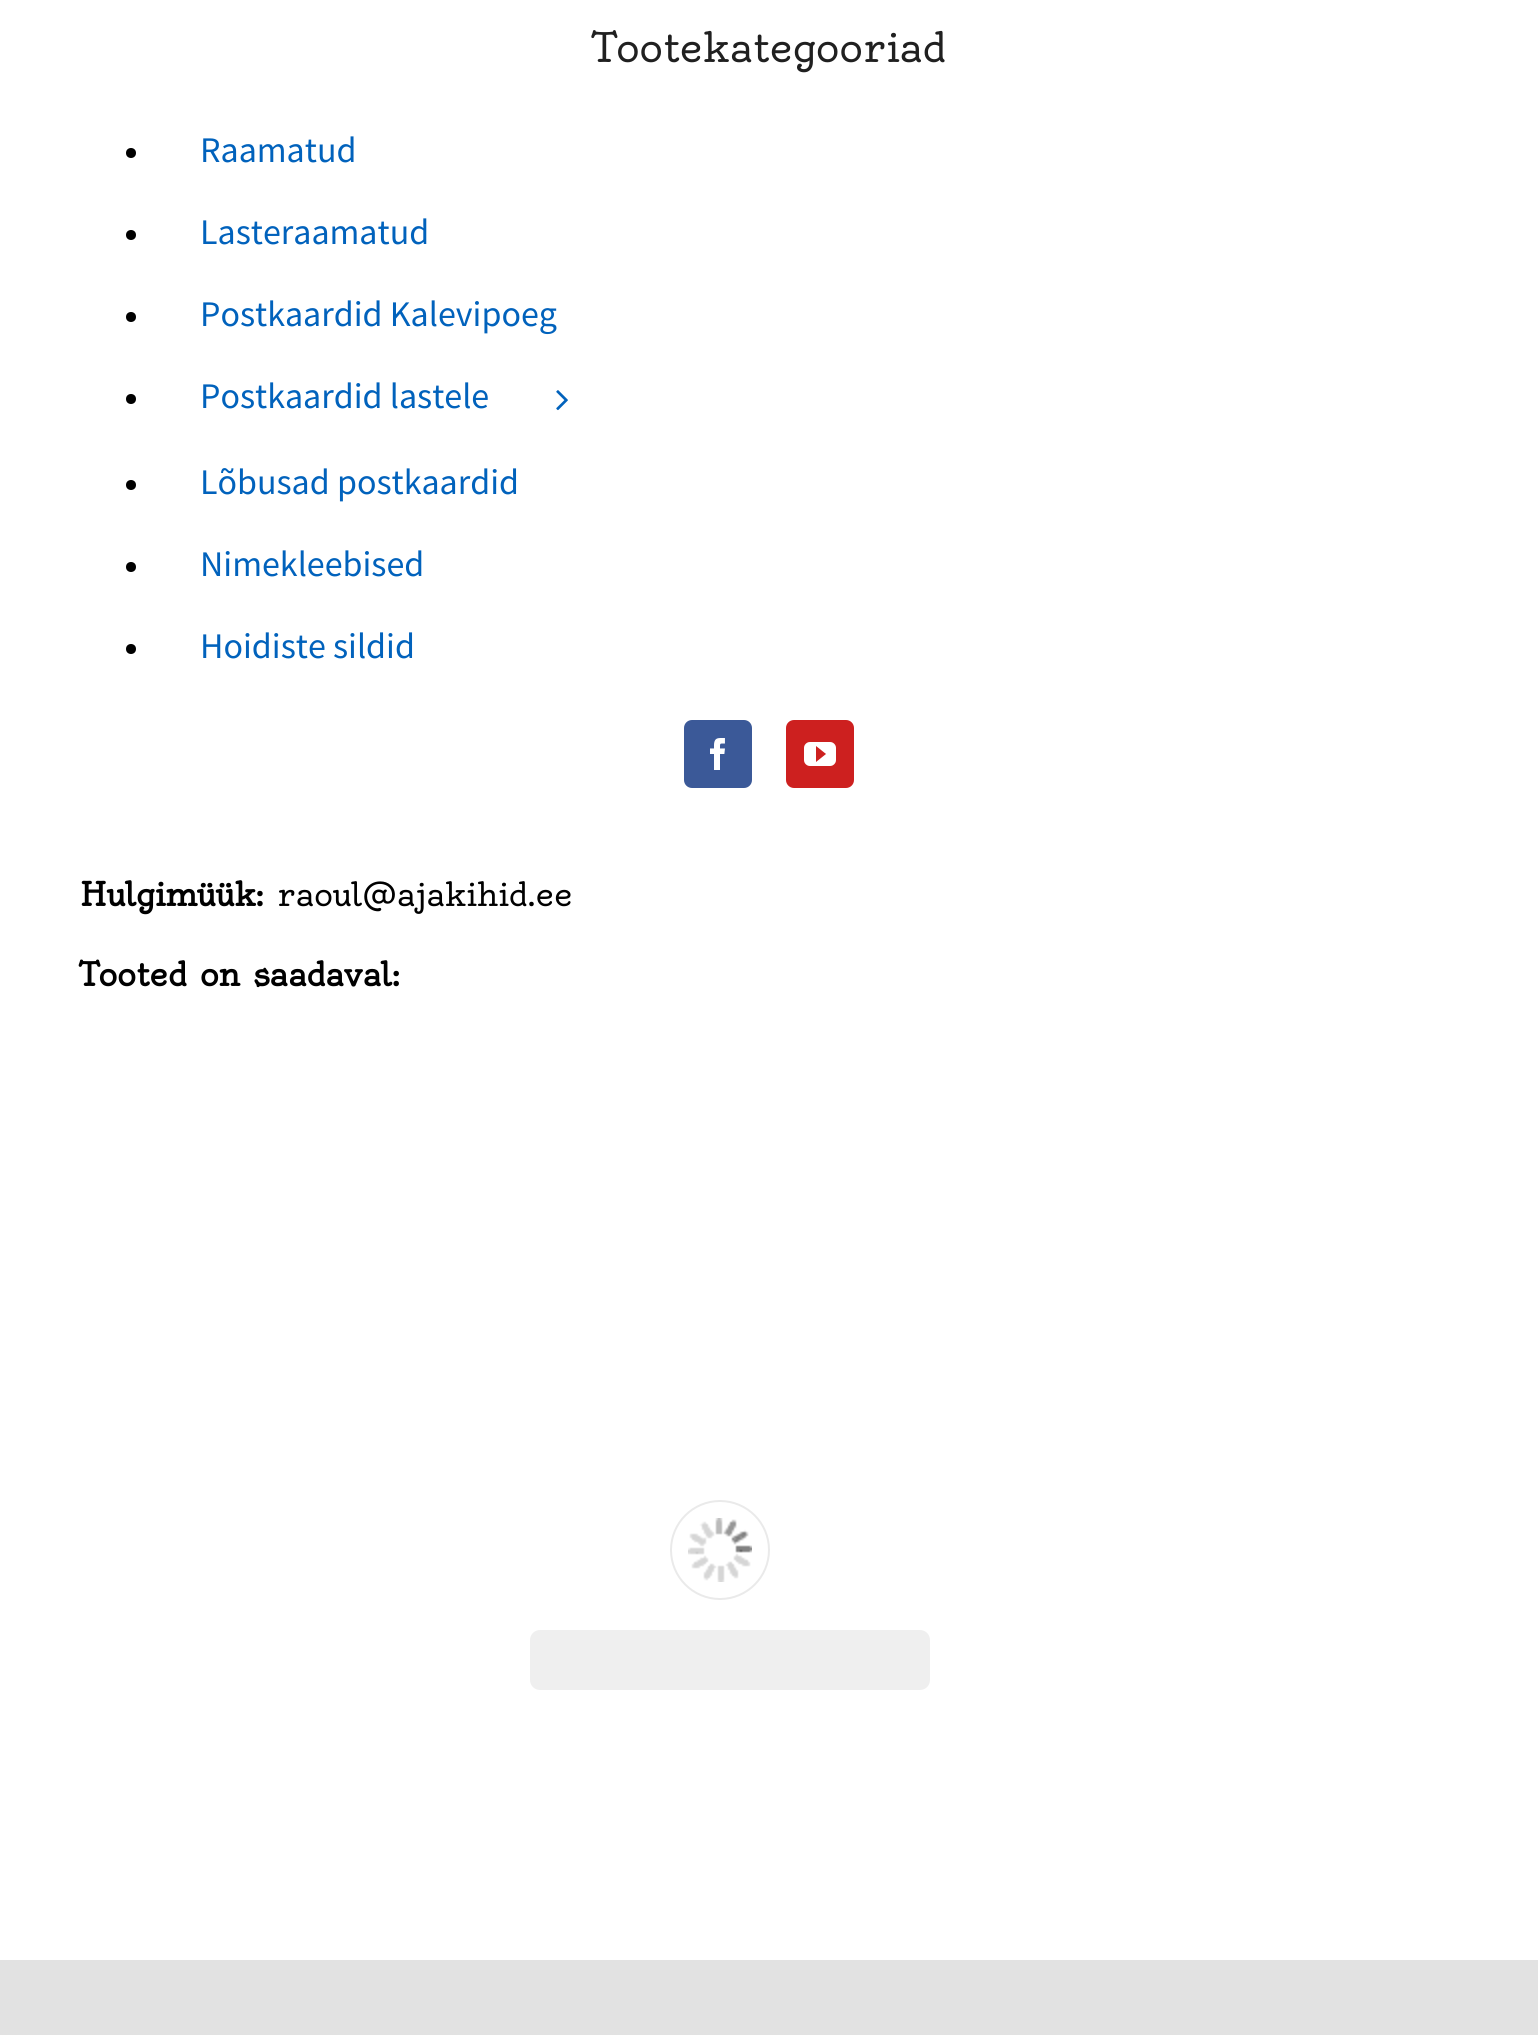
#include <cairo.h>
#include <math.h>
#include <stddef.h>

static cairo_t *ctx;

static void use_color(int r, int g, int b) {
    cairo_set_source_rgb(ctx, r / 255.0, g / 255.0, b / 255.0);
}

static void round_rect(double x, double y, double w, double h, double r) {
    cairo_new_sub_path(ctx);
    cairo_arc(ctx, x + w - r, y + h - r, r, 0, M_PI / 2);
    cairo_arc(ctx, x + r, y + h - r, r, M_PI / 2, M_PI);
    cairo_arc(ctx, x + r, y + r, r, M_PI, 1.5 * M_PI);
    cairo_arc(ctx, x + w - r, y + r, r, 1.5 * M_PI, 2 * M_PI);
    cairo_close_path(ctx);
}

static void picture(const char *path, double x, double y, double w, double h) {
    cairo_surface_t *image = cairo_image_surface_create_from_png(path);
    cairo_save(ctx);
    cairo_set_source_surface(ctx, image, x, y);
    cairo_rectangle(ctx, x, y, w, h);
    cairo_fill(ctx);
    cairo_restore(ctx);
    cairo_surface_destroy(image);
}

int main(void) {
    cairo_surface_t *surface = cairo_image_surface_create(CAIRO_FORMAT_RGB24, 1538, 2035);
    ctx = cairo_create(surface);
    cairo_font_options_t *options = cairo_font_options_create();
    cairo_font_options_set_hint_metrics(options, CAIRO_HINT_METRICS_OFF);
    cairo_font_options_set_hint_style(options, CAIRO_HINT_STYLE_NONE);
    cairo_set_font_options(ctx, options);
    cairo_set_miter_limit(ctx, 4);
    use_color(226, 226, 226);
    cairo_paint(ctx);
    use_color(255, 255, 255);
    cairo_rectangle(ctx, 0, 0, 1538, 1960);
    cairo_fill(ctx);
    cairo_select_font_face(ctx, "Oldenburg", CAIRO_FONT_SLANT_NORMAL, CAIRO_FONT_WEIGHT_NORMAL);
    cairo_set_font_size(ctx, 40);
    use_color(32, 32, 32);
    cairo_move_to(ctx, 593, 62);
    cairo_show_text(ctx, "Tootekategooriad");
    use_color(0, 0, 0);
    cairo_new_path(ctx);
    cairo_arc(ctx, 131, 153, 5, 0, 2 * M_PI);
    cairo_fill(ctx);
    cairo_select_font_face(ctx, "Source Sans Pro", CAIRO_FONT_SLANT_NORMAL, CAIRO_FONT_WEIGHT_NORMAL);
    cairo_set_font_size(ctx, 36);
    use_color(1, 98, 188);
    cairo_move_to(ctx, 200, 162);
    cairo_show_text(ctx, "Raamatud");
    use_color(0, 0, 0);
    cairo_new_path(ctx);
    cairo_arc(ctx, 131, 235, 5, 0, 2 * M_PI);
    cairo_fill(ctx);
    use_color(1, 98, 188);
    cairo_move_to(ctx, 200, 244);
    cairo_show_text(ctx, "Lasteraamatud");
    use_color(0, 0, 0);
    cairo_new_path(ctx);
    cairo_arc(ctx, 131, 317, 5, 0, 2 * M_PI);
    cairo_fill(ctx);
    use_color(1, 98, 188);
    cairo_move_to(ctx, 200, 326);
    cairo_show_text(ctx, "Postkaardid Kalevipoeg");
    use_color(0, 0, 0);
    cairo_new_path(ctx);
    cairo_arc(ctx, 131, 399, 5, 0, 2 * M_PI);
    cairo_fill(ctx);
    use_color(1, 98, 188);
    cairo_move_to(ctx, 200, 408);
    cairo_show_text(ctx, "Postkaardid lastele");
    picture("img1.png", 556, 390, 12, 21);
    use_color(0, 0, 0);
    cairo_arc(ctx, 131, 485, 5, 0, 2 * M_PI);
    cairo_fill(ctx);
    use_color(1, 98, 188);
    cairo_move_to(ctx, 200, 494);
    cairo_show_text(ctx, "Lõbusad postkaardid");
    use_color(0, 0, 0);
    cairo_new_path(ctx);
    cairo_arc(ctx, 131, 567, 5, 0, 2 * M_PI);
    cairo_fill(ctx);
    use_color(1, 98, 188);
    cairo_move_to(ctx, 200, 576);
    cairo_show_text(ctx, "Nimekleebised");
    use_color(0, 0, 0);
    cairo_new_path(ctx);
    cairo_arc(ctx, 131, 649, 5, 0, 2 * M_PI);
    cairo_fill(ctx);
    use_color(1, 98, 188);
    cairo_move_to(ctx, 200, 658);
    cairo_show_text(ctx, "Hoidiste sildid");
    use_color(59, 89, 152);
    round_rect(685, 721, 66, 66, 7);
    cairo_fill_preserve(ctx);
    cairo_stroke(ctx);
    picture("img2.png", 710, 738, 15, 32);
    use_color(205, 32, 31);
    round_rect(787, 721, 66, 66, 7);
    cairo_fill_preserve(ctx);
    cairo_stroke(ctx);
    picture("img3.png", 804, 742, 32, 24);
    cairo_select_font_face(ctx, "Oldenburg", CAIRO_FONT_SLANT_NORMAL, CAIRO_FONT_WEIGHT_BOLD);
    cairo_set_font_size(ctx, 32);
    use_color(0, 0, 0);
    cairo_move_to(ctx, 80, 906);
    cairo_show_text(ctx, "Hulgimüük:");
    cairo_select_font_face(ctx, "Oldenburg", CAIRO_FONT_SLANT_NORMAL, CAIRO_FONT_WEIGHT_NORMAL);
    cairo_move_to(ctx, 277, 906);
    cairo_show_text(ctx, "raoul@ajakihid.ee");
    cairo_select_font_face(ctx, "Oldenburg", CAIRO_FONT_SLANT_NORMAL, CAIRO_FONT_WEIGHT_BOLD);
    cairo_move_to(ctx, 80, 986);
    cairo_show_text(ctx, "Tooted on saadaval:");
    cairo_new_path(ctx);
    cairo_arc(ctx, 720, 1550, 49, 0, 2 * M_PI);
    use_color(234, 234, 234);
    cairo_stroke(ctx);
    picture("img4.png", 688, 1518, 64, 64);
    use_color(239, 239, 239);
    round_rect(530, 1630, 400, 60, 10);
    cairo_fill(ctx);
    cairo_surface_write_to_png(surface, "result.png");
    cairo_font_options_destroy(options);
    cairo_destroy(ctx);
    cairo_surface_destroy(surface);
    return 0;
}
